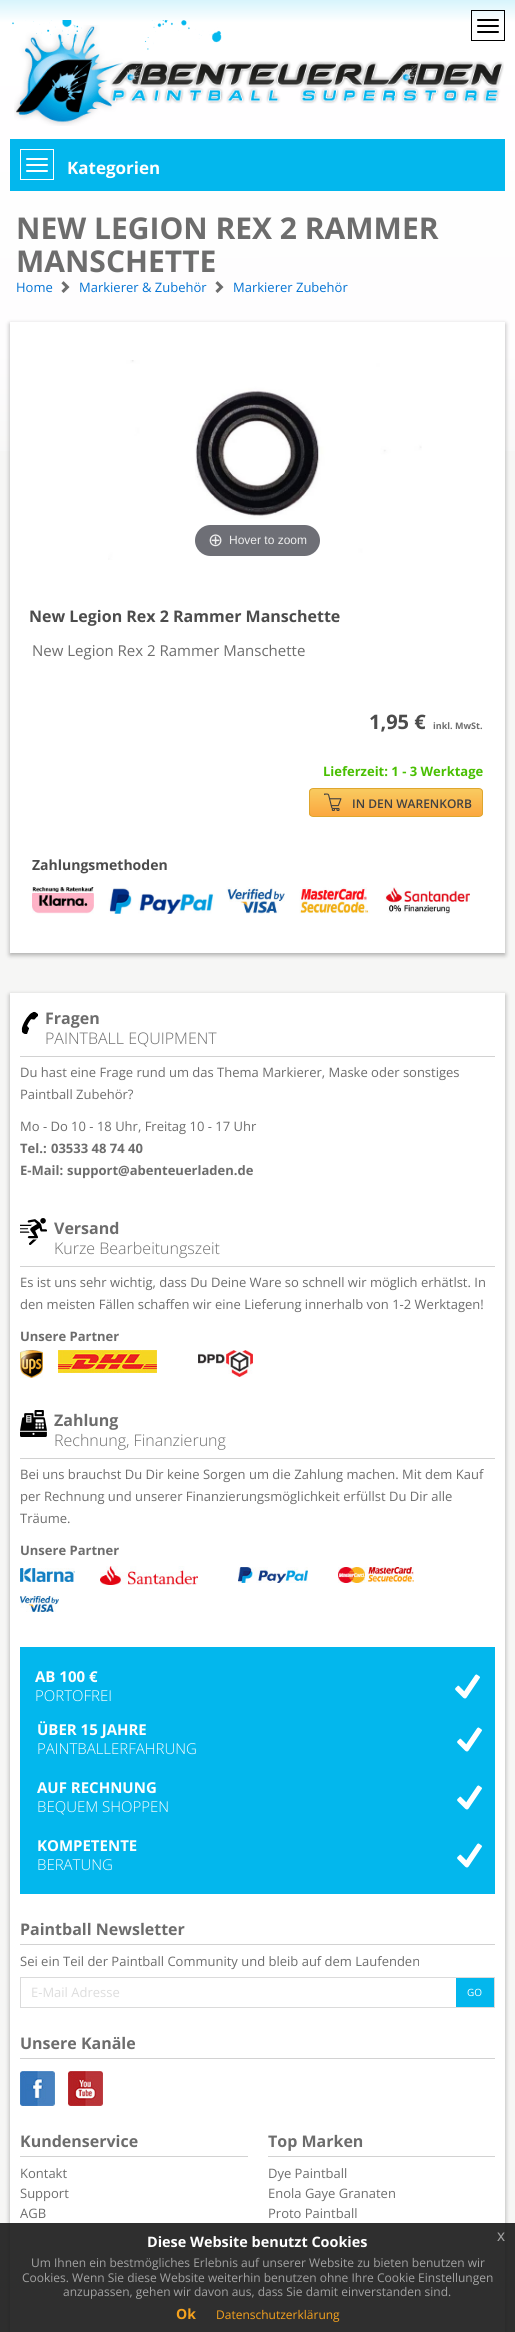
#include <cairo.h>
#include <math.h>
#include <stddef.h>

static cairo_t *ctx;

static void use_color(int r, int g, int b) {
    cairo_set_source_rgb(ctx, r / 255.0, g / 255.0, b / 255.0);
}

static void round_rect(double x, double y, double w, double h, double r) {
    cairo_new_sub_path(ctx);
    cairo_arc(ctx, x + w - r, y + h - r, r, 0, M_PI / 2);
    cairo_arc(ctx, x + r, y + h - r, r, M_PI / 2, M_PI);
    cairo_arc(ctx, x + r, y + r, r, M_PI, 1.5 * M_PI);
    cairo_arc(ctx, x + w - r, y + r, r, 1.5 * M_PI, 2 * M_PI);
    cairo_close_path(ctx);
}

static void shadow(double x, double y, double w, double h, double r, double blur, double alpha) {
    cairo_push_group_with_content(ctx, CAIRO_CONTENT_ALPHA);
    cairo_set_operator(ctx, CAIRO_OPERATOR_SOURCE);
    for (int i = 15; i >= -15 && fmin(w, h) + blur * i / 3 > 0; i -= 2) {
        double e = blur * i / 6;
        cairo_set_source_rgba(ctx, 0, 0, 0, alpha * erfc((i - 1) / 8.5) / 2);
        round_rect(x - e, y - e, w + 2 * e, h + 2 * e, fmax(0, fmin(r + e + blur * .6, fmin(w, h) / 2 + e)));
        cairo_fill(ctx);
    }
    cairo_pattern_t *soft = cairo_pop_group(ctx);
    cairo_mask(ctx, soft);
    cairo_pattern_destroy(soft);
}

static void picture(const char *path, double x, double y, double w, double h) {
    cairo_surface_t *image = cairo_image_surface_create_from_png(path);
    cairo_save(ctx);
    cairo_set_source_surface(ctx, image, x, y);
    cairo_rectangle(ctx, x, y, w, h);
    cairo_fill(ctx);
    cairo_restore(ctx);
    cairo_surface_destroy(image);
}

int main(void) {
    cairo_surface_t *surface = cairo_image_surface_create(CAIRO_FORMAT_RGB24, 515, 2332);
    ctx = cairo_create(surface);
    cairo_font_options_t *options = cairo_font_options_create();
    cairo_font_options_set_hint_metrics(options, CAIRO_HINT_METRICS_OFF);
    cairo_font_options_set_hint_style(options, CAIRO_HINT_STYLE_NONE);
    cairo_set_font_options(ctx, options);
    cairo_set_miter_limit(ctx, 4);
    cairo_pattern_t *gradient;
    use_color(246, 246, 245);
    cairo_paint(ctx);
    gradient = cairo_pattern_create_linear(257, 0, 258, 700);
    cairo_pattern_add_color_stop_rgba(gradient, 0, 1, 1, 1, 1);
    cairo_pattern_add_color_stop_rgba(gradient, 0.5, 0.996, 0.992, 0.996, 1);
    cairo_pattern_add_color_stop_rgba(gradient, 0.7, 0.965, 0.965, 0.961, 1);
    cairo_set_source(ctx, gradient);
    cairo_pattern_destroy(gradient);
    cairo_rectangle(ctx, 0, 70, 515, 381);
    cairo_fill(ctx);
    gradient = cairo_pattern_create_linear(258, 0, 258, 70);
    cairo_pattern_add_color_stop_rgba(gradient, 0, 0.843, 0.957, 0.988, 1);
    cairo_pattern_add_color_stop_rgba(gradient, 0.32, 1, 1, 1, 1);
    cairo_pattern_add_color_stop_rgba(gradient, 1, 1, 1, 1, 1);
    cairo_set_source(ctx, gradient);
    cairo_pattern_destroy(gradient);
    cairo_rectangle(ctx, 0, 0, 515, 70);
    cairo_fill(ctx);
    picture("img1.png", 12, 20, 210, 30);
    picture("img2.png", 14, 25, 490, 101);
    cairo_rectangle(ctx, 471.5, 10.5, 33, 30);
    use_color(0, 0, 0);
    cairo_set_line_width(ctx, 1);
    cairo_stroke(ctx);
    round_rect(477, 19, 22, 2, 1);
    cairo_fill(ctx);
    round_rect(477, 25, 22, 2, 1);
    cairo_fill(ctx);
    round_rect(477, 31, 22, 2, 1);
    cairo_fill(ctx);
    use_color(3, 183, 237);
    cairo_rectangle(ctx, 10, 139, 495, 52);
    cairo_fill(ctx);
    cairo_rectangle(ctx, 20.5, 149.5, 33, 30);
    use_color(255, 255, 255);
    cairo_stroke(ctx);
    round_rect(26, 158, 22, 2, 1);
    cairo_fill(ctx);
    round_rect(26, 164, 22, 2, 1);
    cairo_fill(ctx);
    round_rect(26, 170, 22, 2, 1);
    cairo_fill(ctx);
    cairo_select_font_face(ctx, "Open Sans", CAIRO_FONT_SLANT_NORMAL, CAIRO_FONT_WEIGHT_BOLD);
    cairo_set_font_size(ctx, 17);
    cairo_move_to(ctx, 67, 174);
    cairo_show_text(ctx, "Kategorien");
    cairo_set_font_size(ctx, 30);
    use_color(109, 109, 109);
    cairo_move_to(ctx, 16, 239);
    cairo_show_text(ctx, "NEW LEGION REX 2 RAMMER");
    cairo_move_to(ctx, 16, 272);
    cairo_show_text(ctx, "MANSCHETTE");
    cairo_select_font_face(ctx, "Open Sans", CAIRO_FONT_SLANT_NORMAL, CAIRO_FONT_WEIGHT_NORMAL);
    cairo_set_font_size(ctx, 13);
    use_color(3, 115, 211);
    cairo_move_to(ctx, 16, 292);
    cairo_show_text(ctx, "Home");
    picture("img3.png", 61, 281, 9, 12);
    cairo_move_to(ctx, 79, 292);
    cairo_show_text(ctx, "Markierer & Zubehör");
    picture("img3.png", 215, 281, 9, 12);
    cairo_move_to(ctx, 233, 292);
    cairo_show_text(ctx, "Markierer Zubehör");
    use_color(0, 0, 0);
    shadow(10, 324, 495, 631, 0, 2.5, 0.32);
    use_color(255, 255, 255);
    cairo_rectangle(ctx, 10, 322, 495, 631);
    cairo_fill(ctx);
    picture("img4.png", 108, 360, 314, 200);
    cairo_set_source_rgba(ctx, 0.192, 0.2, 0.239, 0.7);
    round_rect(195, 525, 125, 31, 15.5);
    cairo_fill(ctx);
    cairo_select_font_face(ctx, "DejaVu Sans", CAIRO_FONT_SLANT_NORMAL, CAIRO_FONT_WEIGHT_NORMAL);
    cairo_set_font_size(ctx, 18);
    use_color(238, 238, 238);
    cairo_move_to(ctx, 208, 546);
    cairo_show_text(ctx, "⊕");
    cairo_select_font_face(ctx, "Liberation Sans", CAIRO_FONT_SLANT_NORMAL, CAIRO_FONT_WEIGHT_NORMAL);
    cairo_set_font_size(ctx, 12);
    cairo_move_to(ctx, 229, 544);
    cairo_show_text(ctx, "Hover to zoom");
    cairo_select_font_face(ctx, "Open Sans", CAIRO_FONT_SLANT_NORMAL, CAIRO_FONT_WEIGHT_BOLD);
    cairo_set_font_size(ctx, 16);
    use_color(76, 76, 76);
    cairo_move_to(ctx, 29, 622);
    cairo_show_text(ctx, "New Legion Rex 2 Rammer Manschette");
    cairo_select_font_face(ctx, "Open Sans", CAIRO_FONT_SLANT_NORMAL, CAIRO_FONT_WEIGHT_NORMAL);
    cairo_set_font_size(ctx, 15);
    use_color(109, 109, 109);
    cairo_move_to(ctx, 32, 656);
    cairo_show_text(ctx, "New Legion Rex 2 Rammer Manschette");
    cairo_select_font_face(ctx, "Open Sans", CAIRO_FONT_SLANT_NORMAL, CAIRO_FONT_WEIGHT_BOLD);
    cairo_set_font_size(ctx, 20);
    use_color(76, 76, 76);
    cairo_move_to(ctx, 369, 729);
    cairo_show_text(ctx, "1,95 €");
    cairo_set_font_size(ctx, 9);
    use_color(109, 109, 109);
    cairo_move_to(ctx, 433, 729);
    cairo_show_text(ctx, "inkl. MwSt.");
    cairo_set_font_size(ctx, 13);
    use_color(73, 191, 2);
    cairo_move_to(ctx, 323, 776);
    cairo_show_text(ctx, "Lieferzeit: 1 - 3 Werktage");
    cairo_save(ctx);
    round_rect(309, 788, 174, 29, 4);
    cairo_clip(ctx);
    gradient = cairo_pattern_create_linear(396, 789, 396, 816);
    cairo_pattern_add_color_stop_rgba(gradient, 0, 0.976, 0.796, 0.376, 1);
    cairo_pattern_add_color_stop_rgba(gradient, 1, 0.984, 0.655, 0.247, 1);
    cairo_set_source(ctx, gradient);
    cairo_pattern_destroy(gradient);
    cairo_rectangle(ctx, 309, 789, 174, 27);
    cairo_fill(ctx);
    cairo_restore(ctx);
    round_rect(309.5, 788.5, 173, 28, 3.5);
    use_color(222, 166, 46);
    cairo_stroke(ctx);
    picture("img5.png", 324, 793, 18, 18);
    cairo_select_font_face(ctx, "Open Sans SemiBold", CAIRO_FONT_SLANT_NORMAL, CAIRO_FONT_WEIGHT_NORMAL);
    cairo_set_font_size(ctx, 12);
    use_color(65, 65, 65);
    cairo_move_to(ctx, 352, 808);
    cairo_show_text(ctx, "IN DEN WARENKORB");
    cairo_select_font_face(ctx, "Open Sans", CAIRO_FONT_SLANT_NORMAL, CAIRO_FONT_WEIGHT_BOLD);
    cairo_set_font_size(ctx, 14);
    use_color(76, 76, 76);
    cairo_move_to(ctx, 32, 870);
    cairo_show_text(ctx, "Zahlungsmethoden");
    picture("img6.png", 32, 887, 438, 27);
    use_color(0, 0, 0);
    shadow(10, 995, 495, 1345, 0, 2.5, 0.32);
    use_color(255, 255, 255);
    cairo_rectangle(ctx, 10, 993, 495, 1339);
    cairo_fill(ctx);
    use_color(210, 210, 210);
    cairo_rectangle(ctx, 20, 1056, 475, 1);
    cairo_fill(ctx);
    picture("img7.png", 21, 1011, 17, 23);
    cairo_set_font_size(ctx, 16);
    use_color(109, 109, 109);
    cairo_move_to(ctx, 45, 1024);
    cairo_show_text(ctx, "Fragen");
    cairo_select_font_face(ctx, "Open Sans Light", CAIRO_FONT_SLANT_NORMAL, CAIRO_FONT_WEIGHT_NORMAL);
    cairo_move_to(ctx, 45, 1044);
    cairo_show_text(ctx, "PAINTBALL EQUIPMENT");
    cairo_select_font_face(ctx, "Open Sans", CAIRO_FONT_SLANT_NORMAL, CAIRO_FONT_WEIGHT_NORMAL);
    cairo_set_font_size(ctx, 13);
    cairo_move_to(ctx, 20, 1077);
    cairo_show_text(ctx, "Du hast eine Frage rund um das Thema Markierer, Maske oder sonstiges");
    cairo_move_to(ctx, 20, 1099);
    cairo_show_text(ctx, "Paintball Zubehör?");
    cairo_move_to(ctx, 20, 1131);
    cairo_show_text(ctx, "Mo - Do 10 - 18 Uhr, Freitag 10 - 17 Uhr");
    cairo_select_font_face(ctx, "Open Sans", CAIRO_FONT_SLANT_NORMAL, CAIRO_FONT_WEIGHT_BOLD);
    cairo_move_to(ctx, 20, 1153);
    cairo_show_text(ctx, "Tel.:");
    cairo_move_to(ctx, 51, 1153);
    cairo_show_text(ctx, "03533 48 74 40");
    cairo_move_to(ctx, 20, 1175);
    cairo_show_text(ctx, "E-Mail:");
    cairo_move_to(ctx, 67, 1175);
    cairo_show_text(ctx, "support@abenteuerladen.de");
    use_color(210, 210, 210);
    cairo_rectangle(ctx, 20, 1266, 475, 1);
    cairo_fill(ctx);
    picture("img8.png", 20, 1218, 27, 27);
    cairo_set_font_size(ctx, 16);
    use_color(109, 109, 109);
    cairo_move_to(ctx, 54, 1234);
    cairo_show_text(ctx, "Versand");
    cairo_select_font_face(ctx, "Open Sans Light", CAIRO_FONT_SLANT_NORMAL, CAIRO_FONT_WEIGHT_NORMAL);
    cairo_move_to(ctx, 54, 1254);
    cairo_show_text(ctx, "Kurze Bearbeitungszeit");
    cairo_select_font_face(ctx, "Open Sans", CAIRO_FONT_SLANT_NORMAL, CAIRO_FONT_WEIGHT_NORMAL);
    cairo_set_font_size(ctx, 13);
    cairo_move_to(ctx, 20, 1287);
    cairo_show_text(ctx, "Es ist uns sehr wichtig, dass Du Deine Ware so schnell wir möglich erhätlst. In");
    cairo_move_to(ctx, 20, 1309);
    cairo_show_text(ctx, "den meisten Fällen schaffen wir eine Lieferung innerhalb von 1-2 Werktagen!");
    cairo_select_font_face(ctx, "Open Sans", CAIRO_FONT_SLANT_NORMAL, CAIRO_FONT_WEIGHT_BOLD);
    cairo_move_to(ctx, 20, 1341);
    cairo_show_text(ctx, "Unsere Partner");
    picture("img9.png", 20, 1350, 23, 28);
    picture("img10.png", 58, 1350, 99, 23);
    picture("img11.png", 198, 1350, 55, 27);
    use_color(210, 210, 210);
    cairo_rectangle(ctx, 20, 1458, 475, 1);
    cairo_fill(ctx);
    picture("img12.png", 20, 1410, 27, 27);
    cairo_set_font_size(ctx, 16);
    use_color(109, 109, 109);
    cairo_move_to(ctx, 54, 1426);
    cairo_show_text(ctx, "Zahlung");
    cairo_select_font_face(ctx, "Open Sans Light", CAIRO_FONT_SLANT_NORMAL, CAIRO_FONT_WEIGHT_NORMAL);
    cairo_move_to(ctx, 54, 1446);
    cairo_show_text(ctx, "Rechnung, Finanzierung");
    cairo_select_font_face(ctx, "Open Sans", CAIRO_FONT_SLANT_NORMAL, CAIRO_FONT_WEIGHT_NORMAL);
    cairo_set_font_size(ctx, 13);
    cairo_move_to(ctx, 20, 1479);
    cairo_show_text(ctx, "Bei uns brauchst Du Dir keine Sorgen um die Zahlung machen. Mit dem Kauf");
    cairo_move_to(ctx, 20, 1501);
    cairo_show_text(ctx, "per Rechnung und unserer Finanzierungsmöglichkeit erfüllst Du Dir alle");
    cairo_move_to(ctx, 20, 1523);
    cairo_show_text(ctx, "Träume.");
    cairo_select_font_face(ctx, "Open Sans", CAIRO_FONT_SLANT_NORMAL, CAIRO_FONT_WEIGHT_BOLD);
    cairo_move_to(ctx, 20, 1555);
    cairo_show_text(ctx, "Unsere Partner");
    picture("img13.png", 20, 1568, 55, 14);
    picture("img14.png", 100, 1566, 98, 19);
    picture("img15.png", 238, 1567, 70, 16);
    picture("img16.png", 338, 1567, 76, 16);
    picture("img17.png", 20, 1596, 39, 16);
    use_color(3, 183, 237);
    cairo_rectangle(ctx, 20, 1647, 475, 247);
    cairo_fill(ctx);
    cairo_set_font_size(ctx, 15);
    use_color(255, 255, 255);
    cairo_move_to(ctx, 35, 1682);
    cairo_show_text(ctx, "AB 100 €");
    picture("img18.png", 455, 1674, 25, 25);
    cairo_select_font_face(ctx, "Open Sans Light", CAIRO_FONT_SLANT_NORMAL, CAIRO_FONT_WEIGHT_NORMAL);
    cairo_move_to(ctx, 35, 1701);
    cairo_show_text(ctx, "PORTOFREI");
    cairo_select_font_face(ctx, "Open Sans", CAIRO_FONT_SLANT_NORMAL, CAIRO_FONT_WEIGHT_BOLD);
    cairo_move_to(ctx, 37, 1735);
    cairo_show_text(ctx, "ÜBER 15 JAHRE");
    picture("img18.png", 457, 1727, 25, 25);
    cairo_select_font_face(ctx, "Open Sans Light", CAIRO_FONT_SLANT_NORMAL, CAIRO_FONT_WEIGHT_NORMAL);
    cairo_move_to(ctx, 37, 1754);
    cairo_show_text(ctx, "PAINTBALLERFAHRUNG");
    cairo_select_font_face(ctx, "Open Sans", CAIRO_FONT_SLANT_NORMAL, CAIRO_FONT_WEIGHT_BOLD);
    cairo_move_to(ctx, 37, 1793);
    cairo_show_text(ctx, "AUF RECHNUNG");
    picture("img18.png", 457, 1785, 25, 25);
    cairo_select_font_face(ctx, "Open Sans Light", CAIRO_FONT_SLANT_NORMAL, CAIRO_FONT_WEIGHT_NORMAL);
    cairo_move_to(ctx, 37, 1812);
    cairo_show_text(ctx, "BEQUEM SHOPPEN");
    cairo_select_font_face(ctx, "Open Sans", CAIRO_FONT_SLANT_NORMAL, CAIRO_FONT_WEIGHT_BOLD);
    cairo_move_to(ctx, 37, 1851);
    cairo_show_text(ctx, "KOMPETENTE");
    picture("img18.png", 457, 1843, 25, 25);
    cairo_select_font_face(ctx, "Open Sans Light", CAIRO_FONT_SLANT_NORMAL, CAIRO_FONT_WEIGHT_NORMAL);
    cairo_move_to(ctx, 37, 1870);
    cairo_show_text(ctx, "BERATUNG");
    use_color(210, 210, 210);
    cairo_rectangle(ctx, 20, 1944, 475, 1);
    cairo_fill(ctx);
    cairo_select_font_face(ctx, "Open Sans", CAIRO_FONT_SLANT_NORMAL, CAIRO_FONT_WEIGHT_BOLD);
    cairo_set_font_size(ctx, 16);
    use_color(109, 109, 109);
    cairo_move_to(ctx, 20, 1935);
    cairo_show_text(ctx, "Paintball Newsletter");
    cairo_select_font_face(ctx, "Open Sans", CAIRO_FONT_SLANT_NORMAL, CAIRO_FONT_WEIGHT_NORMAL);
    cairo_set_font_size(ctx, 13);
    cairo_move_to(ctx, 20, 1966);
    cairo_show_text(ctx, "Sei ein Teil der Paintball Community und bleib auf dem Laufenden");
    cairo_rectangle(ctx, 20.5, 1977.5, 474, 30);
    use_color(219, 219, 219);
    cairo_stroke(ctx);
    use_color(221, 221, 221);
    cairo_move_to(ctx, 31, 1997);
    cairo_show_text(ctx, "E-Mail Adresse");
    use_color(3, 183, 237);
    cairo_rectangle(ctx, 456, 1978, 38, 29);
    cairo_fill(ctx);
    cairo_set_font_size(ctx, 10);
    use_color(255, 255, 255);
    cairo_move_to(ctx, 467, 1996);
    cairo_show_text(ctx, "GO");
    use_color(210, 210, 210);
    cairo_rectangle(ctx, 20, 2058, 475, 1);
    cairo_fill(ctx);
    cairo_select_font_face(ctx, "Open Sans", CAIRO_FONT_SLANT_NORMAL, CAIRO_FONT_WEIGHT_BOLD);
    cairo_set_font_size(ctx, 16);
    use_color(109, 109, 109);
    cairo_move_to(ctx, 20, 2049);
    cairo_show_text(ctx, "Unsere Kanäle");
    picture("img19.png", 20, 2071, 35, 35);
    picture("img20.png", 68, 2071, 35, 35);
    use_color(210, 210, 210);
    cairo_rectangle(ctx, 20, 2156, 228, 1);
    cairo_fill(ctx);
    use_color(109, 109, 109);
    cairo_move_to(ctx, 20, 2147);
    cairo_show_text(ctx, "Kundenservice");
    cairo_select_font_face(ctx, "Open Sans", CAIRO_FONT_SLANT_NORMAL, CAIRO_FONT_WEIGHT_NORMAL);
    cairo_set_font_size(ctx, 13);
    cairo_move_to(ctx, 20, 2178);
    cairo_show_text(ctx, "Kontakt");
    cairo_move_to(ctx, 20, 2198);
    cairo_show_text(ctx, "Support");
    cairo_move_to(ctx, 20, 2218);
    cairo_show_text(ctx, "AGB");
    use_color(210, 210, 210);
    cairo_rectangle(ctx, 268, 2156, 227, 1);
    cairo_fill(ctx);
    cairo_save(ctx);
    cairo_rectangle(ctx, 268, 2131, 227, 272);
    cairo_clip(ctx);
    cairo_select_font_face(ctx, "Open Sans", CAIRO_FONT_SLANT_NORMAL, CAIRO_FONT_WEIGHT_BOLD);
    cairo_set_font_size(ctx, 16);
    use_color(109, 109, 109);
    cairo_move_to(ctx, 268, 2147);
    cairo_show_text(ctx, "Top Marken");
    cairo_restore(ctx);
    use_color(109, 109, 109);
    cairo_move_to(ctx, 268, 2178);
    cairo_show_text(ctx, "Dye Paintball");
    cairo_move_to(ctx, 268, 2198);
    cairo_show_text(ctx, "Enola Gaye Granaten");
    cairo_move_to(ctx, 268, 2218);
    cairo_show_text(ctx, "Proto Paintball");
    cairo_set_source_rgba(ctx, 0.098, 0.098, 0.098, 0.9);
    cairo_rectangle(ctx, 0, 2223, 515, 109);
    cairo_fill(ctx);
    cairo_select_font_face(ctx, "Open Sans", CAIRO_FONT_SLANT_NORMAL, CAIRO_FONT_WEIGHT_BOLD);
    cairo_set_font_size(ctx, 14.4);
    use_color(255, 255, 255);
    cairo_move_to(ctx, 147, 2247);
    cairo_show_text(ctx, "Diese Website benutzt Cookies");
    cairo_select_font_face(ctx, "Liberation Sans", CAIRO_FONT_SLANT_NORMAL, CAIRO_FONT_WEIGHT_NORMAL);
    cairo_set_font_size(ctx, 16);
    use_color(162, 162, 162);
    cairo_move_to(ctx, 497, 2241);
    cairo_show_text(ctx, "x");
    cairo_select_font_face(ctx, "Open Sans", CAIRO_FONT_SLANT_NORMAL, CAIRO_FONT_WEIGHT_NORMAL);
    cairo_set_font_size(ctx, 12);
    cairo_move_to(ctx, 31, 2267);
    cairo_show_text(ctx, "Um Ihnen ein bestmögliches Erlebnis auf unserer Website zu bieten benutzen wir");
    cairo_move_to(ctx, 22, 2282);
    cairo_show_text(ctx, "Cookies. Wenn Sie diese Website weiterhin benutzen ohne Ihre Cookie Einstellungen");
    cairo_move_to(ctx, 63, 2296);
    cairo_show_text(ctx, "anzupassen, gehen wir davon aus, dass Sie damit einverstanden sind.");
    cairo_select_font_face(ctx, "Open Sans", CAIRO_FONT_SLANT_NORMAL, CAIRO_FONT_WEIGHT_BOLD);
    cairo_set_font_size(ctx, 14);
    use_color(246, 162, 29);
    cairo_move_to(ctx, 176, 2319);
    cairo_show_text(ctx, "Ok");
    cairo_select_font_face(ctx, "Open Sans", CAIRO_FONT_SLANT_NORMAL, CAIRO_FONT_WEIGHT_NORMAL);
    cairo_set_font_size(ctx, 12);
    cairo_move_to(ctx, 216, 2319);
    cairo_show_text(ctx, "Datenschutzerklärung");
    cairo_surface_write_to_png(surface, "result.png");
    cairo_font_options_destroy(options);
    cairo_destroy(ctx);
    cairo_surface_destroy(surface);
    return 0;
}
